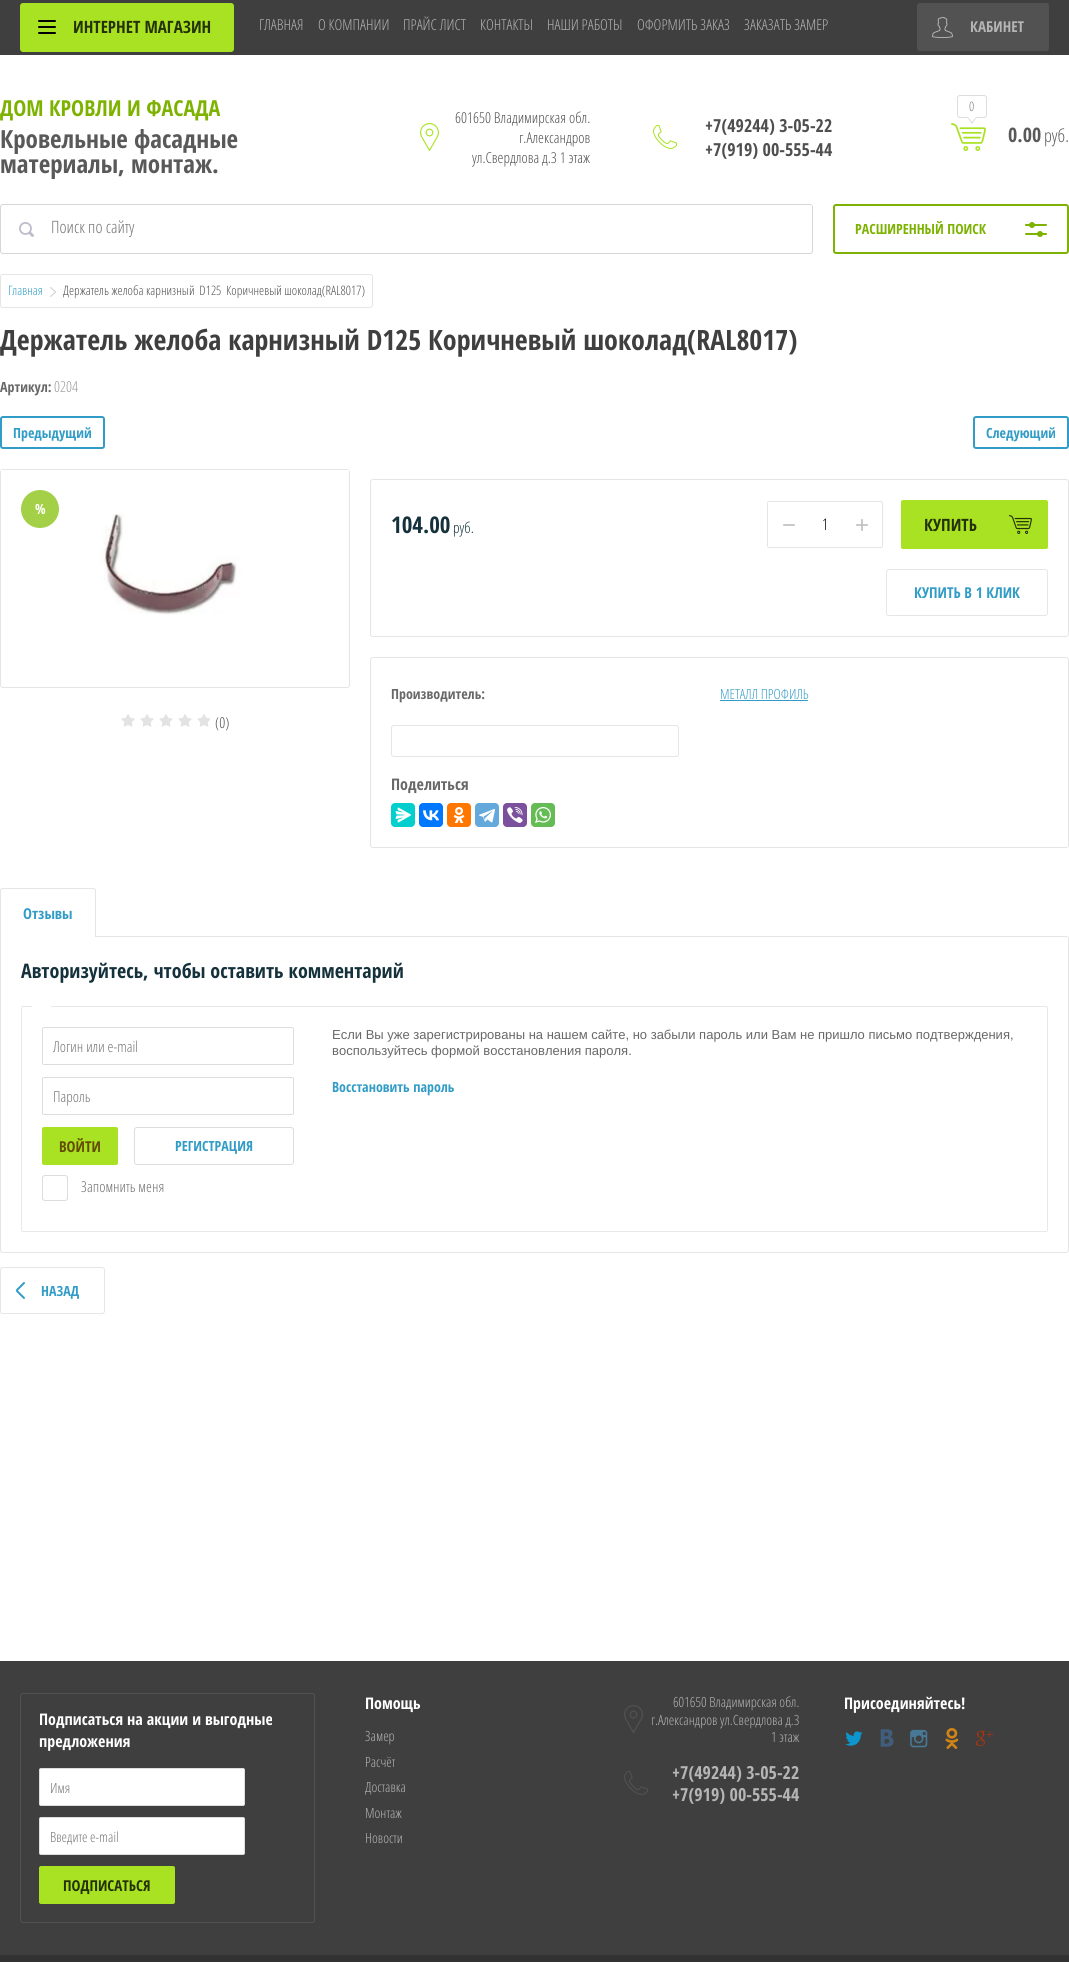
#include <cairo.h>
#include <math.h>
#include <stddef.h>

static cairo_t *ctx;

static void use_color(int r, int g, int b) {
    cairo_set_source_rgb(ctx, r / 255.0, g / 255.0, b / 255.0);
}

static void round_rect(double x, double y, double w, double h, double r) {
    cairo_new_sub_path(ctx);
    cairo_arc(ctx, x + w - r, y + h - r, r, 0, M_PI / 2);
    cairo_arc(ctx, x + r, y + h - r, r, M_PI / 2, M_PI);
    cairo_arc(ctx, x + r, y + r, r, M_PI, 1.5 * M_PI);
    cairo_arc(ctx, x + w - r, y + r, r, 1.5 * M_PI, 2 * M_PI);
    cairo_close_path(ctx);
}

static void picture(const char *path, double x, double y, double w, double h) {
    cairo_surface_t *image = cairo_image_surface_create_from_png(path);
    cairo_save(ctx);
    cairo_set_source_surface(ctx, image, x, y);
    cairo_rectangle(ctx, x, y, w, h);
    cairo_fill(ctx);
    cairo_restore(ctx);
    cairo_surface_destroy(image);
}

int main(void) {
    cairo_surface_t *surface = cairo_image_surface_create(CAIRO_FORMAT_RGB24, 1069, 1962);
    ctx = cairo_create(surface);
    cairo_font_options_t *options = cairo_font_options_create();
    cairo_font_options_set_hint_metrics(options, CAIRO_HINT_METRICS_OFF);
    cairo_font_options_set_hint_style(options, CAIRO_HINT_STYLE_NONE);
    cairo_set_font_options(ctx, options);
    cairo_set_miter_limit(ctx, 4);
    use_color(255, 255, 255);
    cairo_paint(ctx);
    use_color(63, 63, 63);
    cairo_rectangle(ctx, 0, 0, 1069, 55);
    cairo_fill(ctx);
    use_color(169, 226, 34);
    round_rect(20, 3, 214, 49, 3);
    cairo_fill(ctx);
    picture("img1.png", 38, 20, 18, 14);
    cairo_select_font_face(ctx, "Open Sans Condensed", CAIRO_FONT_SLANT_NORMAL, CAIRO_FONT_WEIGHT_BOLD);
    cairo_set_font_size(ctx, 17);
    use_color(37, 50, 6);
    cairo_move_to(ctx, 73, 33);
    cairo_show_text(ctx, "ИНТЕРНЕТ МАГАЗИН");
    cairo_select_font_face(ctx, "Open Sans Light", CAIRO_FONT_SLANT_NORMAL, CAIRO_FONT_WEIGHT_NORMAL);
    cairo_set_font_size(ctx, 15);
    use_color(181, 181, 181);
    cairo_move_to(ctx, 259, 30);
    cairo_show_text(ctx, "ГЛАВНАЯ");
    cairo_move_to(ctx, 318, 30);
    cairo_show_text(ctx, "О КОМПАНИИ");
    cairo_move_to(ctx, 403, 30);
    cairo_show_text(ctx, "ПРАЙС ЛИСТ");
    cairo_move_to(ctx, 480, 30);
    cairo_show_text(ctx, "КОНТАКТЫ");
    cairo_move_to(ctx, 547, 30);
    cairo_show_text(ctx, "НАШИ РАБОТЫ");
    cairo_move_to(ctx, 637, 30);
    cairo_show_text(ctx, "ОФОРМИТЬ ЗАКАЗ");
    cairo_move_to(ctx, 744, 30);
    cairo_show_text(ctx, "ЗАКАЗАТЬ ЗАМЕР");
    use_color(82, 82, 82);
    round_rect(917, 3, 132, 48, 3);
    cairo_fill(ctx);
    picture("img2.png", 932, 17, 21, 21);
    cairo_select_font_face(ctx, "Open Sans Condensed", CAIRO_FONT_SLANT_NORMAL, CAIRO_FONT_WEIGHT_BOLD);
    use_color(181, 181, 181);
    cairo_move_to(ctx, 970, 32);
    cairo_show_text(ctx, "КАБИНЕТ");
    cairo_set_font_size(ctx, 22);
    use_color(125, 178, 0);
    cairo_move_to(ctx, 0, 116);
    cairo_show_text(ctx, "ДОМ КРОВЛИ И ФАСАДА");
    cairo_set_font_size(ctx, 25);
    use_color(89, 89, 89);
    cairo_move_to(ctx, 0, 148);
    cairo_show_text(ctx, "Кровельные фасадные");
    cairo_move_to(ctx, 0, 173);
    cairo_show_text(ctx, "материалы, монтаж.");
    picture("img3.png", 420, 123, 19, 28);
    cairo_select_font_face(ctx, "Open Sans Light", CAIRO_FONT_SLANT_NORMAL, CAIRO_FONT_WEIGHT_NORMAL);
    cairo_set_font_size(ctx, 15);
    use_color(80, 79, 79);
    cairo_move_to(ctx, 455, 123);
    cairo_show_text(ctx, "601650 Владимирская обл.");
    cairo_move_to(ctx, 519, 143);
    cairo_show_text(ctx, "г.Александров");
    cairo_move_to(ctx, 472, 163);
    cairo_show_text(ctx, "ул.Свердлова д.3 1 этаж");
    picture("img4.png", 653, 125, 24, 24);
    cairo_select_font_face(ctx, "Open Sans Condensed", CAIRO_FONT_SLANT_NORMAL, CAIRO_FONT_WEIGHT_BOLD);
    cairo_set_font_size(ctx, 18);
    cairo_move_to(ctx, 705, 132);
    cairo_show_text(ctx, "+7(49244) 3-05-22");
    cairo_move_to(ctx, 705, 156);
    cairo_show_text(ctx, "+7(919) 00-555-44");
    picture("img5.png", 951, 123, 35, 28);
    round_rect(957.5, 95.5, 29, 22, 2.5);
    use_color(221, 221, 221);
    cairo_set_line_width(ctx, 1);
    cairo_stroke(ctx);
    cairo_select_font_face(ctx, "Open Sans Light", CAIRO_FONT_SLANT_NORMAL, CAIRO_FONT_WEIGHT_NORMAL);
    cairo_set_font_size(ctx, 13);
    use_color(126, 126, 126);
    cairo_move_to(ctx, 969, 111);
    cairo_show_text(ctx, "0");
    use_color(221, 221, 221);
    cairo_new_path(ctx);
    cairo_move_to(ctx, 967, 117);
    cairo_line_to(ctx, 977, 117);
    cairo_line_to(ctx, 972, 124);
    cairo_close_path(ctx);
    cairo_fill(ctx);
    use_color(255, 255, 255);
    cairo_new_path(ctx);
    cairo_move_to(ctx, 968, 117);
    cairo_line_to(ctx, 976, 117);
    cairo_line_to(ctx, 972, 122);
    cairo_close_path(ctx);
    cairo_fill(ctx);
    cairo_select_font_face(ctx, "Open Sans Condensed", CAIRO_FONT_SLANT_NORMAL, CAIRO_FONT_WEIGHT_BOLD);
    cairo_set_font_size(ctx, 20);
    use_color(89, 89, 89);
    cairo_move_to(ctx, 1008, 142);
    cairo_show_text(ctx, "0.00");
    cairo_select_font_face(ctx, "Open Sans Light", CAIRO_FONT_SLANT_NORMAL, CAIRO_FONT_WEIGHT_NORMAL);
    cairo_set_font_size(ctx, 18);
    cairo_move_to(ctx, 1044, 142);
    cairo_show_text(ctx, "руб.");
    round_rect(0.5, 204.5, 812, 49, 2.5);
    use_color(214, 214, 214);
    cairo_stroke(ctx);
    picture("img6.png", 19, 222, 15, 15);
    use_color(255, 255, 255);
    round_rect(51, 205, 761, 43, 2);
    cairo_fill(ctx);
    cairo_set_font_size(ctx, 17);
    use_color(117, 117, 117);
    cairo_move_to(ctx, 51, 233);
    cairo_show_text(ctx, "Поиск по сайту");
    round_rect(834, 205, 234, 48, 2);
    use_color(125, 178, 0);
    cairo_set_line_width(ctx, 2);
    cairo_stroke(ctx);
    cairo_select_font_face(ctx, "Open Sans Condensed", CAIRO_FONT_SLANT_NORMAL, CAIRO_FONT_WEIGHT_BOLD);
    cairo_set_font_size(ctx, 14);
    cairo_move_to(ctx, 855, 234);
    cairo_show_text(ctx, "РАСШИРЕННЫЙ ПОИСК");
    picture("img7.png", 1025, 222, 22, 15);
    round_rect(0.5, 274.5, 372, 33, 2.5);
    use_color(229, 229, 229);
    cairo_set_line_width(ctx, 1);
    cairo_stroke(ctx);
    cairo_select_font_face(ctx, "Open Sans Light", CAIRO_FONT_SLANT_NORMAL, CAIRO_FONT_WEIGHT_NORMAL);
    cairo_set_font_size(ctx, 13);
    use_color(49, 156, 198);
    cairo_move_to(ctx, 8, 295);
    cairo_show_text(ctx, "Главная");
    picture("img8.png", 50, 287, 6, 10);
    use_color(80, 79, 79);
    cairo_move_to(ctx, 63, 295);
    cairo_show_text(ctx, "Держатель желоба карнизный  D125  Коричневый шоколад(RAL8017)");
    cairo_select_font_face(ctx, "Open Sans Condensed", CAIRO_FONT_SLANT_NORMAL, CAIRO_FONT_WEIGHT_BOLD);
    cairo_set_font_size(ctx, 28);
    use_color(63, 63, 63);
    cairo_move_to(ctx, 0, 350);
    cairo_show_text(ctx, "Держатель желоба карнизный D125 Коричневый шоколад(RAL8017)");
    cairo_set_font_size(ctx, 14);
    use_color(104, 104, 104);
    cairo_move_to(ctx, 0, 392);
    cairo_show_text(ctx, "Артикул:");
    cairo_select_font_face(ctx, "Open Sans Light", CAIRO_FONT_SLANT_NORMAL, CAIRO_FONT_WEIGHT_NORMAL);
    cairo_set_font_size(ctx, 15);
    use_color(153, 153, 153);
    cairo_move_to(ctx, 54, 392);
    cairo_show_text(ctx, "0204");
    round_rect(1, 417, 103, 31, 2);
    use_color(49, 156, 198);
    cairo_set_line_width(ctx, 2);
    cairo_stroke(ctx);
    cairo_select_font_face(ctx, "Open Sans Condensed", CAIRO_FONT_SLANT_NORMAL, CAIRO_FONT_WEIGHT_BOLD);
    cairo_set_font_size(ctx, 14);
    cairo_move_to(ctx, 13, 438);
    cairo_show_text(ctx, "Предыдущий");
    round_rect(974, 417, 94, 31, 2);
    cairo_stroke(ctx);
    cairo_move_to(ctx, 986, 438);
    cairo_show_text(ctx, "Следующий");
    round_rect(0.5, 469.5, 349, 218, 2.5);
    use_color(229, 229, 229);
    cairo_set_line_width(ctx, 1);
    cairo_stroke(ctx);
    picture("img9.png", 1, 470, 348, 145);
    use_color(164, 208, 71);
    cairo_arc(ctx, 40, 509, 19, 0, 2 * M_PI);
    cairo_fill(ctx);
    use_color(255, 255, 255);
    cairo_move_to(ctx, 35, 514);
    cairo_show_text(ctx, "%");
    picture("img10.png", 121, 714, 89, 13);
    cairo_select_font_face(ctx, "Open Sans Light", CAIRO_FONT_SLANT_NORMAL, CAIRO_FONT_WEIGHT_NORMAL);
    cairo_set_font_size(ctx, 15);
    use_color(80, 79, 79);
    cairo_move_to(ctx, 215, 728);
    cairo_show_text(ctx, "(0)");
    round_rect(370.5, 479.5, 698, 157, 2.5);
    use_color(229, 229, 229);
    cairo_stroke(ctx);
    cairo_select_font_face(ctx, "Open Sans Condensed", CAIRO_FONT_SLANT_NORMAL, CAIRO_FONT_WEIGHT_BOLD);
    cairo_set_font_size(ctx, 23);
    use_color(21, 49, 60);
    cairo_move_to(ctx, 391, 533);
    cairo_show_text(ctx, "104.00");
    cairo_select_font_face(ctx, "Open Sans Light", CAIRO_FONT_SLANT_NORMAL, CAIRO_FONT_WEIGHT_NORMAL);
    cairo_set_font_size(ctx, 15);
    cairo_move_to(ctx, 453, 533);
    cairo_show_text(ctx, "руб.");
    round_rect(767.5, 501.5, 115, 46, 1.5);
    use_color(229, 229, 229);
    cairo_stroke(ctx);
    cairo_select_font_face(ctx, "Liberation Sans", CAIRO_FONT_SLANT_NORMAL, CAIRO_FONT_WEIGHT_NORMAL);
    cairo_set_font_size(ctx, 24);
    use_color(192, 192, 192);
    cairo_move_to(ctx, 782, 533);
    cairo_show_text(ctx, "−");
    cairo_select_font_face(ctx, "Open Sans Light", CAIRO_FONT_SLANT_NORMAL, CAIRO_FONT_WEIGHT_NORMAL);
    cairo_set_font_size(ctx, 16);
    use_color(0, 0, 0);
    cairo_move_to(ctx, 822, 530);
    cairo_show_text(ctx, "1");
    cairo_select_font_face(ctx, "Liberation Sans", CAIRO_FONT_SLANT_NORMAL, CAIRO_FONT_WEIGHT_NORMAL);
    cairo_set_font_size(ctx, 24);
    use_color(192, 192, 192);
    cairo_move_to(ctx, 855, 533);
    cairo_show_text(ctx, "+");
    use_color(169, 226, 34);
    round_rect(901, 500, 147, 49, 2);
    cairo_fill(ctx);
    cairo_select_font_face(ctx, "Open Sans Condensed", CAIRO_FONT_SLANT_NORMAL, CAIRO_FONT_WEIGHT_BOLD);
    cairo_set_font_size(ctx, 17);
    use_color(37, 50, 6);
    cairo_move_to(ctx, 924, 531);
    cairo_show_text(ctx, "КУПИТЬ");
    picture("img11.png", 1009, 515, 23, 19);
    round_rect(886.5, 569.5, 161, 46, 2.5);
    use_color(230, 230, 230);
    cairo_stroke(ctx);
    cairo_set_font_size(ctx, 15);
    use_color(49, 156, 198);
    cairo_move_to(ctx, 914, 598);
    cairo_show_text(ctx, "КУПИТЬ В 1 КЛИК");
    round_rect(370.5, 657.5, 698, 190, 2.5);
    use_color(229, 229, 229);
    cairo_stroke(ctx);
    cairo_set_font_size(ctx, 14);
    use_color(104, 104, 104);
    cairo_move_to(ctx, 391, 699);
    cairo_show_text(ctx, "Производитель:");
    cairo_select_font_face(ctx, "Open Sans Light", CAIRO_FONT_SLANT_NORMAL, CAIRO_FONT_WEIGHT_NORMAL);
    use_color(49, 156, 198);
    cairo_move_to(ctx, 720, 699);
    cairo_show_text(ctx, "МЕТАЛЛ ПРОФИЛЬ");
    cairo_rectangle(ctx, 720, 700, 88, 1);
    cairo_fill(ctx);
    round_rect(391.5, 725.5, 287, 31, 2.5);
    use_color(230, 230, 230);
    cairo_stroke(ctx);
    cairo_select_font_face(ctx, "Open Sans Condensed", CAIRO_FONT_SLANT_NORMAL, CAIRO_FONT_WEIGHT_BOLD);
    cairo_set_font_size(ctx, 16);
    use_color(104, 104, 104);
    cairo_move_to(ctx, 391, 790);
    cairo_show_text(ctx, "Поделиться");
    use_color(3, 206, 206);
    round_rect(391, 803, 24, 24, 4);
    cairo_fill(ctx);
    picture("img12.png", 395, 807, 16, 16);
    use_color(0, 119, 255);
    round_rect(419, 803, 24, 24, 4);
    cairo_fill(ctx);
    picture("img13.png", 423, 810, 16, 11);
    use_color(255, 119, 0);
    round_rect(447, 803, 24, 24, 4);
    cairo_fill(ctx);
    picture("img14.png", 453, 807, 12, 16);
    use_color(100, 169, 220);
    round_rect(475, 803, 24, 24, 4);
    cairo_fill(ctx);
    picture("img15.png", 479, 809, 16, 14);
    use_color(123, 81, 157);
    round_rect(503, 803, 24, 24, 4);
    cairo_fill(ctx);
    picture("img16.png", 507, 807, 16, 16);
    use_color(101, 188, 84);
    round_rect(531, 803, 24, 24, 4);
    cairo_fill(ctx);
    picture("img17.png", 535, 807, 16, 16);
    cairo_new_path(ctx);
    cairo_move_to(ctx, 0.5, 936.5);
    cairo_line_to(ctx, 1066, 936.5);
    cairo_curve_to(ctx, 1067.5, 936.5, 1068.5, 937.5, 1068.5, 939);
    cairo_line_to(ctx, 1068.5, 1250);
    cairo_curve_to(ctx, 1068.5, 1251.5, 1067.5, 1252.5, 1066, 1252.5);
    cairo_line_to(ctx, 3, 1252.5);
    cairo_curve_to(ctx, 1.5, 1252.5, 0.5, 1251.5, 0.5, 1250);
    cairo_close_path(ctx);
    use_color(229, 229, 229);
    cairo_stroke(ctx);
    use_color(255, 255, 255);
    cairo_new_path(ctx);
    cairo_move_to(ctx, 3, 888);
    cairo_line_to(ctx, 93, 888);
    cairo_curve_to(ctx, 94.5, 888, 96, 889.5, 96, 891);
    cairo_line_to(ctx, 96, 937);
    cairo_line_to(ctx, 0, 937);
    cairo_line_to(ctx, 0, 891);
    cairo_curve_to(ctx, 0, 889.5, 1.5, 888, 3, 888);
    cairo_close_path(ctx);
    cairo_fill(ctx);
    use_color(229, 229, 229);
    cairo_set_fill_rule(ctx, CAIRO_FILL_RULE_EVEN_ODD);
    cairo_new_path(ctx);
    cairo_move_to(ctx, 3, 888);
    cairo_line_to(ctx, 93, 888);
    cairo_curve_to(ctx, 95, 888, 96, 889, 96, 891);
    cairo_line_to(ctx, 96, 937);
    cairo_line_to(ctx, 0, 937);
    cairo_line_to(ctx, 0, 891);
    cairo_curve_to(ctx, 0, 889, 1, 888, 3, 888);
    cairo_close_path(ctx);
    cairo_move_to(ctx, 3, 889);
    cairo_line_to(ctx, 93, 889);
    cairo_curve_to(ctx, 94, 889, 95, 890, 95, 891);
    cairo_line_to(ctx, 95, 937);
    cairo_line_to(ctx, 1, 937);
    cairo_line_to(ctx, 1, 891);
    cairo_curve_to(ctx, 1, 890, 2, 889, 3, 889);
    cairo_close_path(ctx);
    cairo_fill(ctx);
    cairo_set_font_size(ctx, 15);
    use_color(49, 156, 198);
    cairo_move_to(ctx, 23, 919);
    cairo_show_text(ctx, "Отзывы");
    cairo_set_font_size(ctx, 20);
    use_color(21, 49, 60);
    cairo_move_to(ctx, 21, 978);
    cairo_show_text(ctx, "Авторизуйтесь, чтобы оставить комментарий");
    round_rect(21.5, 1006.5, 1026, 225, 1.5);
    use_color(232, 232, 232);
    cairo_stroke(ctx);
    use_color(255, 255, 255);
    cairo_rectangle(ctx, 32, 1006, 19, 1);
    cairo_fill(ctx);
    round_rect(42.5, 1027.5, 251, 37, 1.5);
    use_color(221, 221, 221);
    cairo_stroke(ctx);
    cairo_select_font_face(ctx, "Open Sans Light", CAIRO_FONT_SLANT_NORMAL, CAIRO_FONT_WEIGHT_NORMAL);
    cairo_set_font_size(ctx, 15);
    use_color(117, 117, 117);
    cairo_move_to(ctx, 53, 1052);
    cairo_show_text(ctx, "Логин или e-mail");
    round_rect(42.5, 1077.5, 251, 37, 1.5);
    use_color(221, 221, 221);
    cairo_stroke(ctx);
    use_color(117, 117, 117);
    cairo_move_to(ctx, 53, 1102);
    cairo_show_text(ctx, "Пароль");
    use_color(169, 226, 34);
    round_rect(42, 1127, 76, 38, 2);
    cairo_fill(ctx);
    cairo_select_font_face(ctx, "Open Sans Condensed", CAIRO_FONT_SLANT_NORMAL, CAIRO_FONT_WEIGHT_BOLD);
    use_color(99, 77, 0);
    cairo_move_to(ctx, 59, 1152);
    cairo_show_text(ctx, "ВОЙТИ");
    round_rect(134.5, 1127.5, 159, 37, 2.5);
    use_color(221, 221, 221);
    cairo_stroke(ctx);
    cairo_set_font_size(ctx, 14);
    use_color(49, 156, 198);
    cairo_move_to(ctx, 175, 1151);
    cairo_show_text(ctx, "РЕГИСТРАЦИЯ");
    round_rect(42.5, 1175.5, 25, 25, 2.5);
    use_color(221, 221, 221);
    cairo_stroke(ctx);
    cairo_select_font_face(ctx, "Open Sans Light", CAIRO_FONT_SLANT_NORMAL, CAIRO_FONT_WEIGHT_NORMAL);
    cairo_set_font_size(ctx, 15);
    use_color(111, 111, 111);
    cairo_move_to(ctx, 81, 1192);
    cairo_show_text(ctx, "Запомнить меня");
    cairo_select_font_face(ctx, "Liberation Sans", CAIRO_FONT_SLANT_NORMAL, CAIRO_FONT_WEIGHT_NORMAL);
    cairo_set_font_size(ctx, 13);
    use_color(104, 104, 104);
    cairo_move_to(ctx, 332, 1039);
    cairo_show_text(ctx, "Если Вы уже зарегистрированы на нашем сайте, но забыли пароль или Вам не пришло письмо подтверждения,");
    cairo_move_to(ctx, 332, 1055);
    cairo_show_text(ctx, "воспользуйтесь формой восстановления пароля.");
    cairo_select_font_face(ctx, "Open Sans Condensed", CAIRO_FONT_SLANT_NORMAL, CAIRO_FONT_WEIGHT_BOLD);
    cairo_set_font_size(ctx, 14);
    use_color(49, 156, 198);
    cairo_move_to(ctx, 332, 1092);
    cairo_show_text(ctx, "Восстановить пароль");
    picture("img18.png", 16, 1282, 9, 17);
    round_rect(0.5, 1267.5, 104, 46, 2.5);
    use_color(230, 230, 230);
    cairo_stroke(ctx);
    use_color(49, 156, 198);
    cairo_move_to(ctx, 41, 1296);
    cairo_show_text(ctx, "НАЗАД");
    use_color(63, 63, 63);
    cairo_rectangle(ctx, 0, 1661, 1069, 294);
    cairo_fill(ctx);
    round_rect(20.5, 1693.5, 294, 229, 2.5);
    use_color(82, 82, 82);
    cairo_stroke(ctx);
    cairo_set_font_size(ctx, 16);
    use_color(255, 255, 255);
    cairo_move_to(ctx, 39, 1725);
    cairo_show_text(ctx, "Подписаться на акции и выгодные");
    cairo_move_to(ctx, 39, 1747);
    cairo_show_text(ctx, "предложения");
    round_rect(39.5, 1768.5, 205, 37, 1.5);
    cairo_fill_preserve(ctx);
    use_color(221, 221, 221);
    cairo_stroke(ctx);
    cairo_select_font_face(ctx, "Open Sans Light", CAIRO_FONT_SLANT_NORMAL, CAIRO_FONT_WEIGHT_NORMAL);
    cairo_set_font_size(ctx, 14);
    use_color(117, 117, 117);
    cairo_move_to(ctx, 50, 1793);
    cairo_show_text(ctx, "Имя");
    use_color(255, 255, 255);
    round_rect(39.5, 1817.5, 205, 37, 1.5);
    cairo_fill_preserve(ctx);
    use_color(221, 221, 221);
    cairo_stroke(ctx);
    use_color(117, 117, 117);
    cairo_move_to(ctx, 50, 1842);
    cairo_show_text(ctx, "Введите e-mail");
    use_color(169, 226, 34);
    round_rect(39, 1866, 136, 38, 2);
    cairo_fill(ctx);
    cairo_select_font_face(ctx, "Open Sans Condensed", CAIRO_FONT_SLANT_NORMAL, CAIRO_FONT_WEIGHT_BOLD);
    cairo_set_font_size(ctx, 15);
    use_color(37, 50, 6);
    cairo_move_to(ctx, 63, 1891);
    cairo_show_text(ctx, "ПОДПИСАТЬСЯ");
    cairo_set_font_size(ctx, 16);
    use_color(255, 255, 255);
    cairo_move_to(ctx, 365, 1709);
    cairo_show_text(ctx, "Помощь");
    cairo_select_font_face(ctx, "Open Sans Light", CAIRO_FONT_SLANT_NORMAL, CAIRO_FONT_WEIGHT_NORMAL);
    cairo_set_font_size(ctx, 14);
    use_color(181, 181, 181);
    cairo_move_to(ctx, 365, 1741);
    cairo_show_text(ctx, "Замер");
    cairo_move_to(ctx, 365, 1767);
    cairo_show_text(ctx, "Расчёт");
    cairo_move_to(ctx, 365, 1792);
    cairo_show_text(ctx, "Доставка");
    cairo_move_to(ctx, 365, 1818);
    cairo_show_text(ctx, "Монтаж");
    cairo_move_to(ctx, 365, 1843);
    cairo_show_text(ctx, "Новости");
    picture("img19.png", 624, 1705, 19, 28);
    cairo_move_to(ctx, 673, 1707);
    cairo_show_text(ctx, "601650 Владимирская обл.");
    cairo_move_to(ctx, 651, 1725);
    cairo_show_text(ctx, "г.Александров ул.Свердлова д.3");
    cairo_move_to(ctx, 771, 1742);
    cairo_show_text(ctx, "1 этаж");
    picture("img20.png", 624, 1771, 24, 24);
    cairo_select_font_face(ctx, "Open Sans Condensed", CAIRO_FONT_SLANT_NORMAL, CAIRO_FONT_WEIGHT_BOLD);
    cairo_set_font_size(ctx, 18);
    cairo_move_to(ctx, 672, 1779);
    cairo_show_text(ctx, "+7(49244) 3-05-22");
    cairo_move_to(ctx, 672, 1801);
    cairo_show_text(ctx, "+7(919) 00-555-44");
    cairo_set_font_size(ctx, 16);
    use_color(255, 255, 255);
    cairo_move_to(ctx, 844, 1709);
    cairo_show_text(ctx, "Присоединяйтесь!");
    picture("img21.png", 845, 1731, 18, 15);
    picture("img22.png", 880, 1729, 14, 18);
    picture("img23.png", 910, 1729, 18, 19);
    picture("img24.png", 945, 1728, 14, 21);
    picture("img25.png", 975, 1730, 18, 17);
    use_color(50, 50, 50);
    cairo_rectangle(ctx, 0, 1955, 1069, 7);
    cairo_fill(ctx);
    cairo_surface_write_to_png(surface, "result.png");
    cairo_font_options_destroy(options);
    cairo_destroy(ctx);
    cairo_surface_destroy(surface);
    return 0;
}
